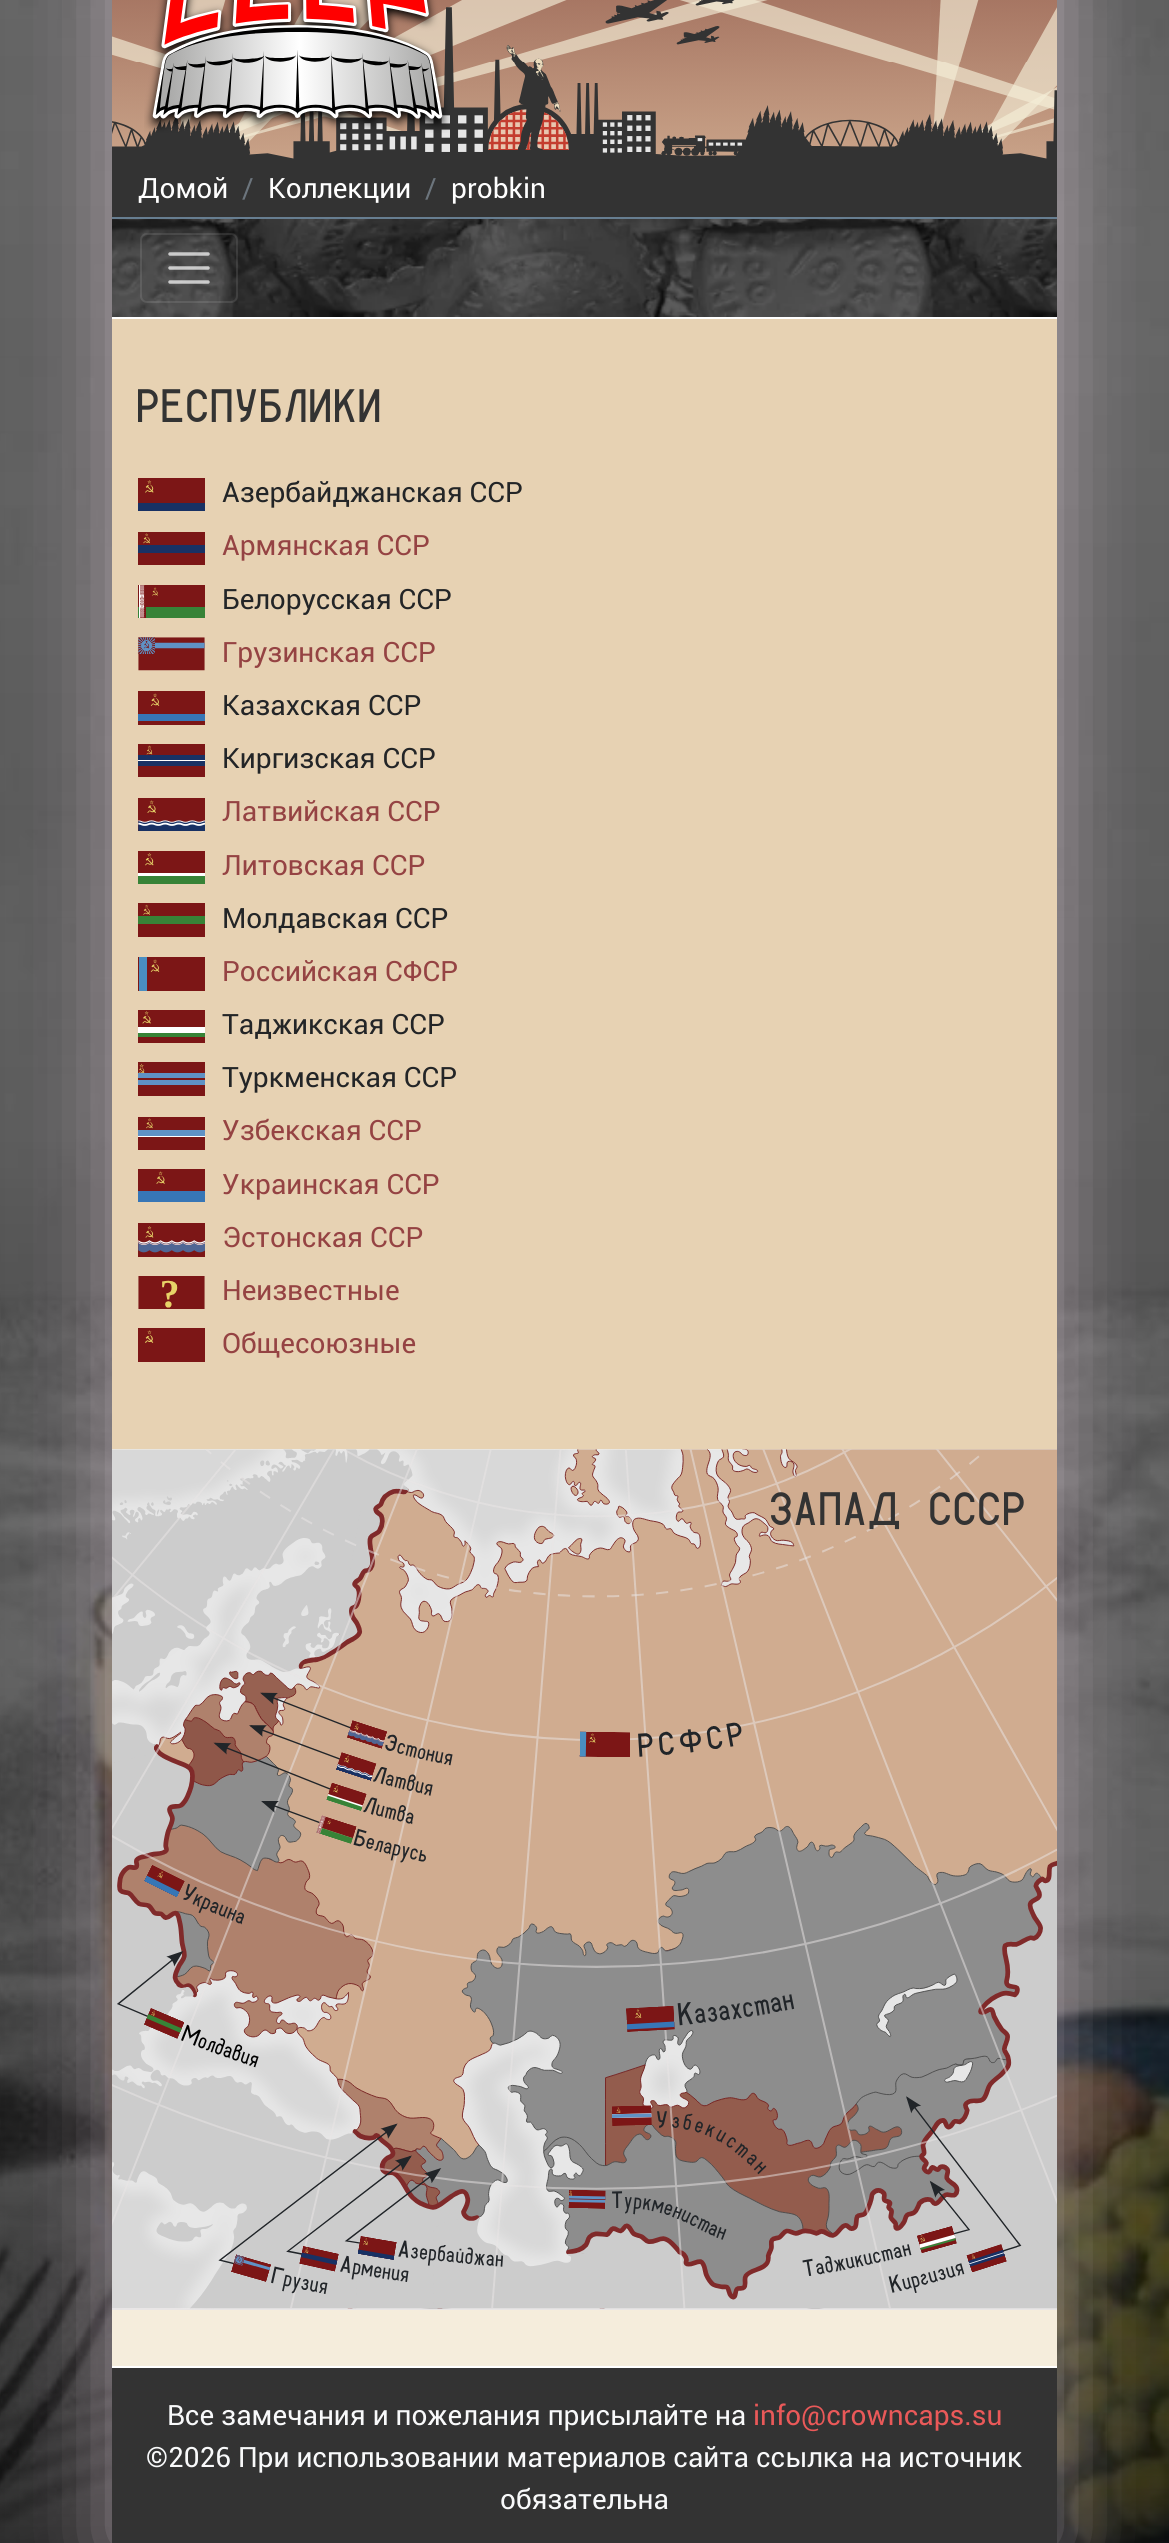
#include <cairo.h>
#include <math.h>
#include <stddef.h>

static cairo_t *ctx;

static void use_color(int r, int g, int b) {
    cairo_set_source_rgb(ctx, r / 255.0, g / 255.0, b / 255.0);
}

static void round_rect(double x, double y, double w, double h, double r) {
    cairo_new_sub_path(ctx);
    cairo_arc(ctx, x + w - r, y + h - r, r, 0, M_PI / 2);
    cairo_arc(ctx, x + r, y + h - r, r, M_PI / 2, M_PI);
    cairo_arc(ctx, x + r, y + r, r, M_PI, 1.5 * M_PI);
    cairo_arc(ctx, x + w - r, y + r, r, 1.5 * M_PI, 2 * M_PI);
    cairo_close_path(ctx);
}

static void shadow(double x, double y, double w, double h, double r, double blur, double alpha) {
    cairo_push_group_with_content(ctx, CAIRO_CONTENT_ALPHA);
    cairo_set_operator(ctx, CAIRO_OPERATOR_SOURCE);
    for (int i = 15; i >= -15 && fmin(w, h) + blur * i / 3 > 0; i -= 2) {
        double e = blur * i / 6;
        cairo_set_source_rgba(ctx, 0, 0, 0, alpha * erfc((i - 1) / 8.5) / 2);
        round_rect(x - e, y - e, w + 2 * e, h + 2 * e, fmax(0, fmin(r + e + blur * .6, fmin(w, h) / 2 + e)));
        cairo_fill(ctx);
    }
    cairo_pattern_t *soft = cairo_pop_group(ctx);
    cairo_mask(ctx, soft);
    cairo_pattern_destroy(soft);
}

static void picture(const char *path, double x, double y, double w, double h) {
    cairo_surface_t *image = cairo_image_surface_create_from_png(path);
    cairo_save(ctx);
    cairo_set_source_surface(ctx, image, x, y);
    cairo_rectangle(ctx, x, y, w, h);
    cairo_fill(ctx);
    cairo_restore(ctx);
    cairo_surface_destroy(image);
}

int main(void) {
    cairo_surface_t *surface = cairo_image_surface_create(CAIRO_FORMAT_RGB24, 1169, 2543);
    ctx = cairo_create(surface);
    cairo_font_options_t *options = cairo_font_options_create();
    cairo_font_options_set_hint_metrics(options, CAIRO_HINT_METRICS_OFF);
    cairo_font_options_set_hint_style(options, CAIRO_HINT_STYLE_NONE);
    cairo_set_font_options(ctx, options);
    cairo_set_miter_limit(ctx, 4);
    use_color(255, 255, 255);
    cairo_paint(ctx);
    picture("img1.png", 0, 0, 1169, 2543);
    use_color(255, 230, 246);
    shadow(112, -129, 945, 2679, 0, 43, 0.5);
    picture("img2.png", 112, 0, 945, 161);
    picture("img3.png", 144, 0, 306, 133);
    use_color(51, 51, 51);
    cairo_rectangle(ctx, 112, 161, 945, 56);
    cairo_fill(ctx);
    cairo_select_font_face(ctx, "Roboto", CAIRO_FONT_SLANT_NORMAL, CAIRO_FONT_WEIGHT_NORMAL);
    cairo_set_font_size(ctx, 28);
    use_color(255, 255, 255);
    cairo_move_to(ctx, 138, 198);
    cairo_show_text(ctx, "Домой");
    use_color(108, 117, 125);
    cairo_move_to(ctx, 242, 198);
    cairo_show_text(ctx, "/");
    use_color(255, 255, 255);
    cairo_move_to(ctx, 268, 198);
    cairo_show_text(ctx, "Коллекции");
    use_color(108, 117, 125);
    cairo_move_to(ctx, 425, 198);
    cairo_show_text(ctx, "/");
    use_color(255, 255, 255);
    cairo_move_to(ctx, 451, 198);
    cairo_show_text(ctx, "probkin");
    picture("img4.png", 112, 219, 945, 98);
    use_color(103, 126, 145);
    cairo_rectangle(ctx, 112, 217, 945, 2);
    cairo_fill(ctx);
    round_rect(141, 234, 96, 68, 6);
    cairo_set_source_rgba(ctx, 1, 1, 1, 0.1);
    cairo_stroke(ctx);
    cairo_new_path(ctx);
    cairo_move_to(ctx, 170, 254);
    cairo_line_to(ctx, 208, 254);
    cairo_move_to(ctx, 170, 268);
    cairo_line_to(ctx, 208, 268);
    cairo_move_to(ctx, 170, 282);
    cairo_line_to(ctx, 208, 282);
    cairo_set_source_rgba(ctx, 1, 1, 1, 0.7);
    cairo_set_line_width(ctx, 3.5);
    cairo_set_line_cap(ctx, CAIRO_LINE_CAP_ROUND);
    cairo_stroke(ctx);
    use_color(245, 237, 220);
    cairo_rectangle(ctx, 112, 1449, 945, 917);
    cairo_fill(ctx);
    use_color(231, 210, 179);
    cairo_rectangle(ctx, 112, 319, 945, 1130);
    cairo_fill(ctx);
    use_color(255, 255, 255);
    cairo_rectangle(ctx, 112, 317, 945, 2);
    cairo_fill(ctx);
    cairo_select_font_face(ctx, "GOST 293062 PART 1", CAIRO_FONT_SLANT_NORMAL, CAIRO_FONT_WEIGHT_NORMAL);
    cairo_set_font_size(ctx, 56);
    use_color(51, 51, 51);
    cairo_move_to(ctx, 138, 422);
    cairo_show_text(ctx, "РЕСПУБЛИКИ");
    picture("img5.png", 138, 478, 67, 33);
    cairo_select_font_face(ctx, "Roboto", CAIRO_FONT_SLANT_NORMAL, CAIRO_FONT_WEIGHT_NORMAL);
    cairo_set_font_size(ctx, 28);
    use_color(35, 37, 39);
    cairo_move_to(ctx, 222, 502);
    cairo_show_text(ctx, "Азербайджанская ССР");
    picture("img6.png", 138, 532, 67, 33);
    use_color(149, 67, 67);
    cairo_move_to(ctx, 222, 555);
    cairo_show_text(ctx, "Армянская ССР");
    picture("img7.png", 138, 585, 67, 33);
    use_color(35, 37, 39);
    cairo_move_to(ctx, 222, 609);
    cairo_show_text(ctx, "Белорусская ССР");
    picture("img8.png", 138, 637, 67, 34);
    use_color(149, 67, 67);
    cairo_move_to(ctx, 222, 662);
    cairo_show_text(ctx, "Грузинская ССР");
    picture("img9.png", 138, 691, 67, 34);
    use_color(35, 37, 39);
    cairo_move_to(ctx, 222, 715);
    cairo_show_text(ctx, "Казахская ССР");
    picture("img10.png", 138, 744, 67, 33);
    cairo_move_to(ctx, 222, 768);
    cairo_show_text(ctx, "Киргизская ССР");
    picture("img11.png", 138, 798, 67, 33);
    use_color(149, 67, 67);
    cairo_move_to(ctx, 222, 821);
    cairo_show_text(ctx, "Латвийская ССР");
    picture("img12.png", 138, 851, 67, 33);
    cairo_move_to(ctx, 222, 875);
    cairo_show_text(ctx, "Литовская ССР");
    picture("img13.png", 138, 903, 67, 34);
    use_color(35, 37, 39);
    cairo_move_to(ctx, 222, 928);
    cairo_show_text(ctx, "Молдавская ССР");
    picture("img14.png", 138, 957, 67, 34);
    use_color(149, 67, 67);
    cairo_move_to(ctx, 222, 981);
    cairo_show_text(ctx, "Российская СФСР");
    picture("img15.png", 138, 1010, 67, 33);
    use_color(35, 37, 39);
    cairo_move_to(ctx, 222, 1034);
    cairo_show_text(ctx, "Таджикская ССР");
    picture("img16.png", 138, 1062, 67, 34);
    cairo_move_to(ctx, 222, 1087);
    cairo_show_text(ctx, "Туркменская ССР");
    picture("img17.png", 138, 1117, 67, 33);
    use_color(149, 67, 67);
    cairo_move_to(ctx, 222, 1140);
    cairo_show_text(ctx, "Узбекская ССР");
    picture("img18.png", 138, 1169, 67, 33);
    cairo_move_to(ctx, 222, 1194);
    cairo_show_text(ctx, "Украинская ССР");
    picture("img19.png", 138, 1223, 67, 34);
    cairo_move_to(ctx, 222, 1247);
    cairo_show_text(ctx, "Эстонская ССР");
    picture("img20.png", 138, 1276, 67, 33);
    cairo_move_to(ctx, 222, 1300);
    cairo_show_text(ctx, "Неизвестные");
    picture("img21.png", 138, 1328, 67, 34);
    cairo_move_to(ctx, 222, 1353);
    cairo_show_text(ctx, "Общесоюзные");
    use_color(233, 230, 230);
    cairo_rectangle(ctx, 112, 2308, 945, 2);
    cairo_fill(ctx);
    picture("img22.png", 112, 1449, 945, 860);
    cairo_select_font_face(ctx, "GOST 293062 PART 1", CAIRO_FONT_SLANT_NORMAL, CAIRO_FONT_WEIGHT_NORMAL);
    cairo_set_font_size(ctx, 56);
    use_color(51, 51, 51);
    cairo_move_to(ctx, 771, 1525);
    cairo_show_text(ctx, "ЗАПАД СССР");
    cairo_rectangle(ctx, 112, 2368, 945, 175);
    cairo_fill(ctx);
    use_color(255, 255, 255);
    cairo_rectangle(ctx, 112, 2366, 945, 2);
    cairo_fill(ctx);
    cairo_select_font_face(ctx, "Roboto", CAIRO_FONT_SLANT_NORMAL, CAIRO_FONT_WEIGHT_NORMAL);
    cairo_set_font_size(ctx, 28);
    use_color(248, 249, 250);
    cairo_move_to(ctx, 167, 2425);
    cairo_show_text(ctx, "Все замечания и пожелания присылайте на");
    use_color(234, 89, 89);
    cairo_move_to(ctx, 753, 2425);
    cairo_show_text(ctx, "info@crowncaps.su");
    use_color(248, 249, 250);
    cairo_move_to(ctx, 146, 2467);
    cairo_show_text(ctx, "©2026 При использовании материалов сайта ссылка на источник");
    cairo_move_to(ctx, 500, 2509);
    cairo_show_text(ctx, "обязательна");
    cairo_surface_write_to_png(surface, "result.png");
    cairo_font_options_destroy(options);
    cairo_destroy(ctx);
    cairo_surface_destroy(surface);
    return 0;
}
